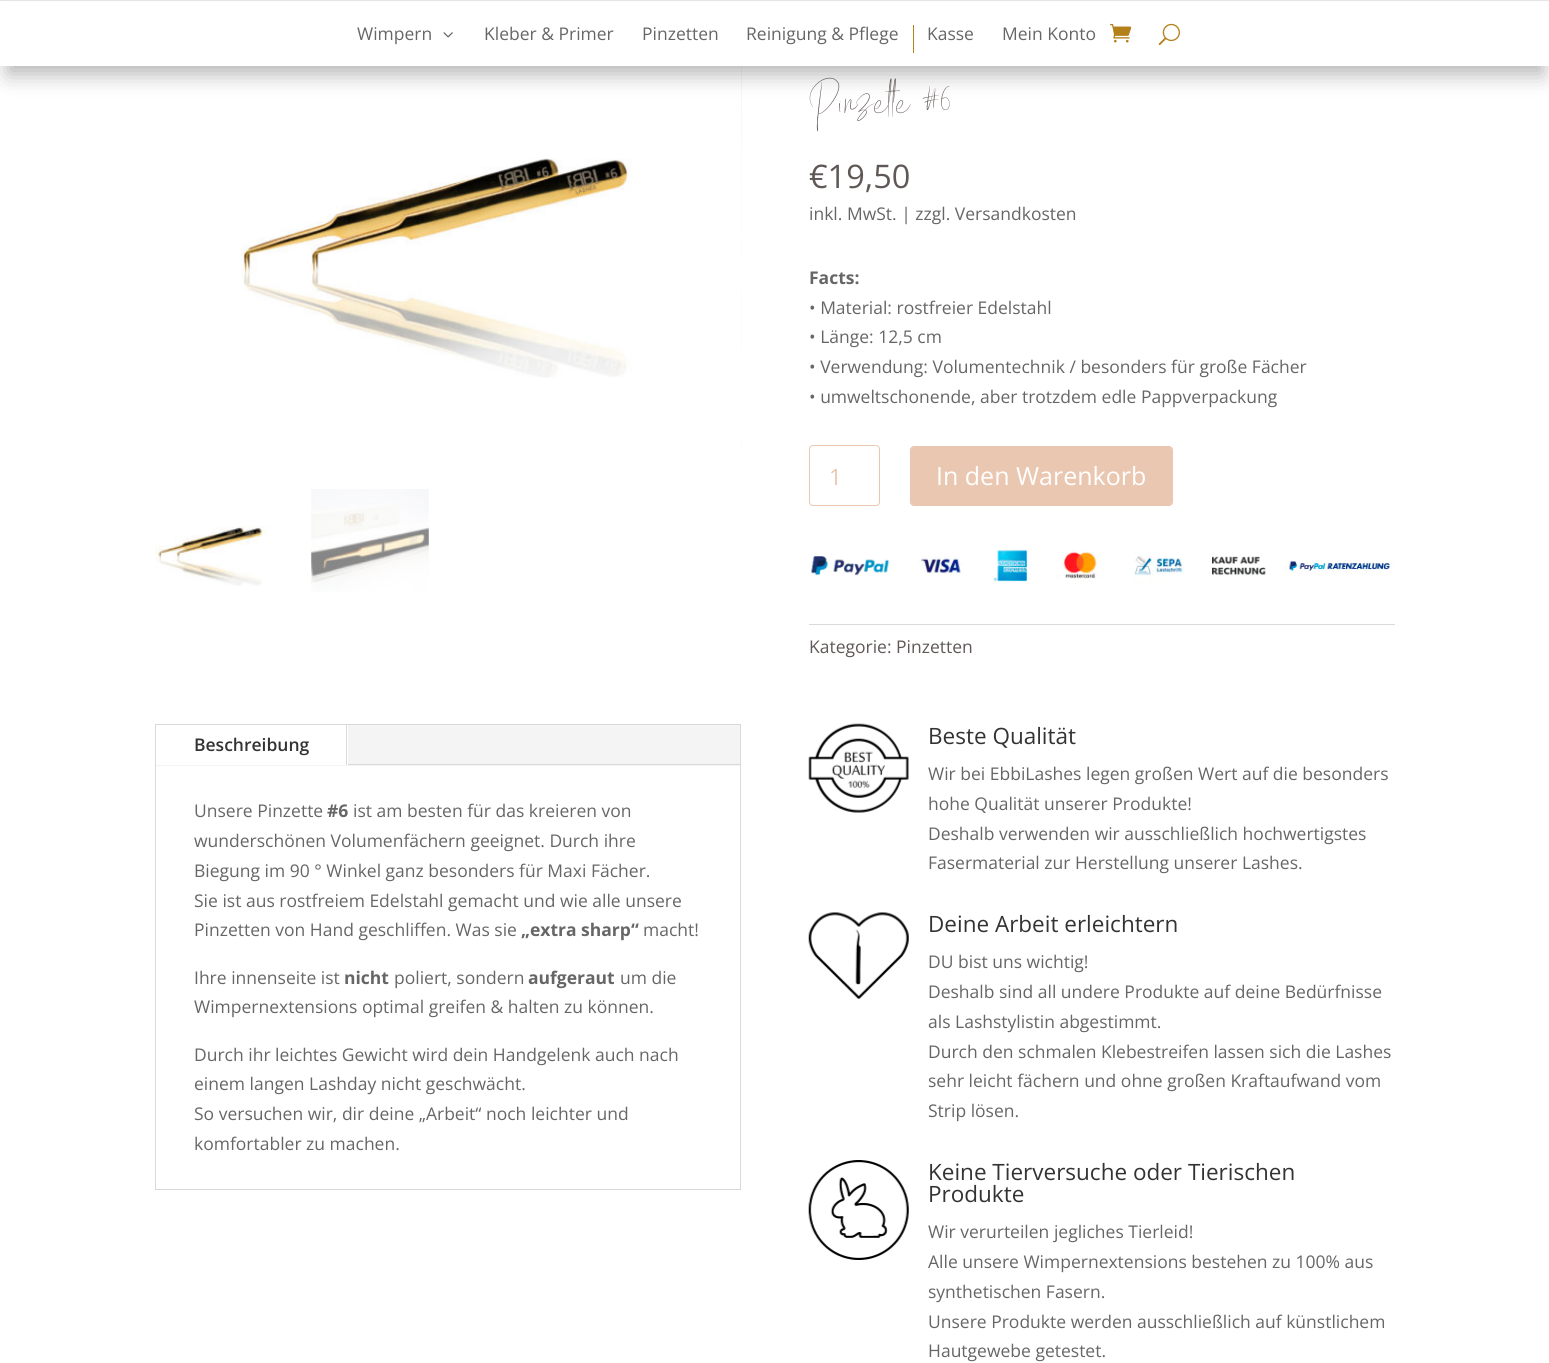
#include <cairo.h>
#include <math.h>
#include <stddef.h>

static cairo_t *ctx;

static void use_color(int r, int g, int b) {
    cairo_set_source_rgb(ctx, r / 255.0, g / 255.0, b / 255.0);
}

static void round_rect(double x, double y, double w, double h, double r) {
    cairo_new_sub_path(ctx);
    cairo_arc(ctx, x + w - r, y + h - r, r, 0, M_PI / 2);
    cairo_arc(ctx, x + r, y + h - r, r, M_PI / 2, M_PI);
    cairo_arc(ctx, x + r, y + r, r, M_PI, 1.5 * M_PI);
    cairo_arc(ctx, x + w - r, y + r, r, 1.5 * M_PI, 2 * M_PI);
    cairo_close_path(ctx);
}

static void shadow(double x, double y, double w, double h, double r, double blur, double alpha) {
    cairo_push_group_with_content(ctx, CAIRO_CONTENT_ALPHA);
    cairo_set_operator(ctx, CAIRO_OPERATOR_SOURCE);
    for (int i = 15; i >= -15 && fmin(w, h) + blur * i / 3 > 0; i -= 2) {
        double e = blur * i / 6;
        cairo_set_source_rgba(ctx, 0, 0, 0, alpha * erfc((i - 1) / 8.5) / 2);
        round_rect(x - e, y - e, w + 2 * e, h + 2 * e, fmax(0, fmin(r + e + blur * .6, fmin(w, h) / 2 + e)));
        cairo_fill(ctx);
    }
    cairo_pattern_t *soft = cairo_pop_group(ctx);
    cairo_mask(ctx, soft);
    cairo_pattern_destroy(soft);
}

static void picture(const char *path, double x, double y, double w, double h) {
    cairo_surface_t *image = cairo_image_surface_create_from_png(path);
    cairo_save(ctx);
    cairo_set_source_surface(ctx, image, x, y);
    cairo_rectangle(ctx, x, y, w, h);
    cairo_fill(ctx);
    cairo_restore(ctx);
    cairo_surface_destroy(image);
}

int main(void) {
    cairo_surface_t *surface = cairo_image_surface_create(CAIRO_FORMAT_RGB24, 1549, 1363);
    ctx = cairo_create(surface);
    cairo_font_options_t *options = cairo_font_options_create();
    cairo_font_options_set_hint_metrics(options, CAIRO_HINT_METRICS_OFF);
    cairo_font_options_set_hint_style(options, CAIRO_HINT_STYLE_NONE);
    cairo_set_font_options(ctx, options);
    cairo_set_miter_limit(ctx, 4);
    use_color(255, 255, 255);
    cairo_paint(ctx);
    picture("img5.png", 741, 66, 1, 383);
    picture("img8.png", 809, 77, 141, 55);
    use_color(0, 0, 0);
    shadow(8, 23, 1535, 51, 0, 11, 0.3);
    use_color(255, 255, 255);
    cairo_rectangle(ctx, 0, 3, 1549, 63);
    cairo_fill(ctx);
    use_color(230, 228, 228);
    cairo_rectangle(ctx, 0, 0, 1549, 1);
    cairo_fill(ctx);
    cairo_select_font_face(ctx, "Open Sans", CAIRO_FONT_SLANT_NORMAL, CAIRO_FONT_WEIGHT_NORMAL);
    cairo_set_font_size(ctx, 17.5);
    use_color(102, 102, 102);
    cairo_move_to(ctx, 357, 40);
    cairo_show_text(ctx, "Wimpern");
    picture("img1.png", 443, 32, 10, 6);
    cairo_move_to(ctx, 484, 40);
    cairo_show_text(ctx, "Kleber & Primer");
    cairo_move_to(ctx, 642, 40);
    cairo_show_text(ctx, "Pinzetten");
    cairo_move_to(ctx, 746, 40);
    cairo_show_text(ctx, "Reinigung & Pflege");
    use_color(180, 128, 25);
    cairo_rectangle(ctx, 913, 25, 1, 28);
    cairo_fill(ctx);
    use_color(102, 102, 102);
    cairo_move_to(ctx, 927, 40);
    cairo_show_text(ctx, "Kasse");
    cairo_move_to(ctx, 1002, 40);
    cairo_show_text(ctx, "Mein Konto");
    picture("img2.png", 1110, 23, 22, 20);
    picture("img3.png", 1158, 23, 22, 23);
    picture("img4.png", 241, 158, 391, 220);
    picture("img6.png", 155, 526, 113, 60);
    picture("img7.png", 311, 489, 118, 103);
    cairo_set_font_size(ctx, 32.5);
    use_color(96, 88, 86);
    cairo_move_to(ctx, 809, 188);
    cairo_show_text(ctx, "€19,50");
    cairo_set_font_size(ctx, 17.5);
    use_color(102, 102, 102);
    cairo_move_to(ctx, 809, 220);
    cairo_show_text(ctx, "inkl. MwSt. | zzgl. Versandkosten");
    cairo_select_font_face(ctx, "Open Sans", CAIRO_FONT_SLANT_NORMAL, CAIRO_FONT_WEIGHT_BOLD);
    cairo_move_to(ctx, 809, 284);
    cairo_show_text(ctx, "Facts:");
    cairo_select_font_face(ctx, "Open Sans", CAIRO_FONT_SLANT_NORMAL, CAIRO_FONT_WEIGHT_NORMAL);
    cairo_move_to(ctx, 809, 314);
    cairo_show_text(ctx, "• Material: rostfreier Edelstahl");
    cairo_move_to(ctx, 809, 343);
    cairo_show_text(ctx, "• Länge: 12,5 cm");
    cairo_move_to(ctx, 809, 373);
    cairo_show_text(ctx, "• Verwendung: Volumentechnik / besonders für große Fächer");
    cairo_move_to(ctx, 809, 403);
    cairo_show_text(ctx, "• umweltschonende, aber trotzdem edle Pappverpackung");
    round_rect(809.5, 445.5, 70, 60, 3.5);
    use_color(234, 199, 177);
    cairo_set_line_width(ctx, 1);
    cairo_stroke(ctx);
    cairo_set_font_size(ctx, 22.5);
    cairo_move_to(ctx, 829, 485);
    cairo_show_text(ctx, "1");
    round_rect(910.5, 446.5, 262, 59, 3.5);
    cairo_fill_preserve(ctx);
    cairo_stroke(ctx);
    cairo_set_font_size(ctx, 25);
    use_color(255, 255, 255);
    cairo_move_to(ctx, 936, 485);
    cairo_show_text(ctx, "In den Warenkorb");
    picture("img9.png", 811, 549, 584, 35);
    use_color(218, 218, 218);
    cairo_rectangle(ctx, 809, 624, 586, 1);
    cairo_fill(ctx);
    cairo_set_font_size(ctx, 17.5);
    use_color(96, 88, 86);
    cairo_move_to(ctx, 809, 653);
    cairo_show_text(ctx, "Kategorie: Pinzetten");
    cairo_rectangle(ctx, 155.5, 724.5, 585, 465);
    use_color(217, 217, 217);
    cairo_stroke(ctx);
    use_color(244, 244, 244);
    cairo_rectangle(ctx, 156, 725, 584, 41);
    cairo_fill(ctx);
    use_color(255, 255, 255);
    cairo_rectangle(ctx, 156, 725, 192, 40);
    cairo_fill(ctx);
    use_color(217, 217, 217);
    cairo_rectangle(ctx, 346, 725, 1, 40);
    cairo_fill(ctx);
    cairo_select_font_face(ctx, "Open Sans SemiBold", CAIRO_FONT_SLANT_NORMAL, CAIRO_FONT_WEIGHT_NORMAL);
    use_color(51, 51, 51);
    cairo_move_to(ctx, 194, 751);
    cairo_show_text(ctx, "Beschreibung");
    use_color(217, 217, 217);
    cairo_rectangle(ctx, 348, 764, 392, 1);
    cairo_fill(ctx);
    cairo_select_font_face(ctx, "Open Sans", CAIRO_FONT_SLANT_NORMAL, CAIRO_FONT_WEIGHT_NORMAL);
    use_color(102, 102, 102);
    cairo_move_to(ctx, 194, 817);
    cairo_show_text(ctx, "Unsere Pinzette");
    cairo_select_font_face(ctx, "Open Sans", CAIRO_FONT_SLANT_NORMAL, CAIRO_FONT_WEIGHT_BOLD);
    cairo_move_to(ctx, 327, 817);
    cairo_show_text(ctx, "#6");
    cairo_select_font_face(ctx, "Open Sans", CAIRO_FONT_SLANT_NORMAL, CAIRO_FONT_WEIGHT_NORMAL);
    cairo_move_to(ctx, 353, 817);
    cairo_show_text(ctx, "ist am besten für das kreieren von");
    cairo_move_to(ctx, 194, 847);
    cairo_show_text(ctx, "wunderschönen Volumenfächern geeignet. Durch ihre");
    cairo_move_to(ctx, 194, 877);
    cairo_show_text(ctx, "Biegung im 90 ° Winkel ganz besonders für Maxi Fächer.");
    cairo_move_to(ctx, 194, 907);
    cairo_show_text(ctx, "Sie ist aus rostfreiem Edelstahl gemacht und wie alle unsere");
    cairo_move_to(ctx, 194, 936);
    cairo_show_text(ctx, "Pinzetten von Hand geschliffen. Was sie");
    cairo_select_font_face(ctx, "Open Sans", CAIRO_FONT_SLANT_NORMAL, CAIRO_FONT_WEIGHT_BOLD);
    cairo_move_to(ctx, 521, 936);
    cairo_show_text(ctx, "„extra sharp“");
    cairo_select_font_face(ctx, "Open Sans", CAIRO_FONT_SLANT_NORMAL, CAIRO_FONT_WEIGHT_NORMAL);
    cairo_move_to(ctx, 643, 936);
    cairo_show_text(ctx, "macht!");
    cairo_move_to(ctx, 194, 984);
    cairo_show_text(ctx, "Ihre innenseite ist");
    cairo_select_font_face(ctx, "Open Sans", CAIRO_FONT_SLANT_NORMAL, CAIRO_FONT_WEIGHT_BOLD);
    cairo_move_to(ctx, 344, 984);
    cairo_show_text(ctx, "nicht");
    cairo_select_font_face(ctx, "Open Sans", CAIRO_FONT_SLANT_NORMAL, CAIRO_FONT_WEIGHT_NORMAL);
    cairo_move_to(ctx, 394, 984);
    cairo_show_text(ctx, "poliert, sondern");
    cairo_select_font_face(ctx, "Open Sans", CAIRO_FONT_SLANT_NORMAL, CAIRO_FONT_WEIGHT_BOLD);
    cairo_move_to(ctx, 528, 984);
    cairo_show_text(ctx, "aufgeraut");
    cairo_select_font_face(ctx, "Open Sans", CAIRO_FONT_SLANT_NORMAL, CAIRO_FONT_WEIGHT_NORMAL);
    cairo_move_to(ctx, 620, 984);
    cairo_show_text(ctx, "um die");
    cairo_move_to(ctx, 194, 1013);
    cairo_show_text(ctx, "Wimpernextensions optimal greifen & halten zu können.");
    cairo_move_to(ctx, 194, 1061);
    cairo_show_text(ctx, "Durch ihr leichtes Gewicht wird dein Handgelenk auch nach");
    cairo_move_to(ctx, 194, 1090);
    cairo_show_text(ctx, "einem langen Lashday nicht geschwächt.");
    cairo_move_to(ctx, 194, 1120);
    cairo_show_text(ctx, "So versuchen wir, dir deine „Arbeit“ noch leichter und");
    cairo_move_to(ctx, 194, 1150);
    cairo_show_text(ctx, "komfortabler zu machen.");
    picture("img10.png", 808, 723, 101, 90);
    cairo_set_font_size(ctx, 22.5);
    use_color(51, 51, 51);
    cairo_move_to(ctx, 928, 744);
    cairo_show_text(ctx, "Beste Qualität");
    cairo_set_font_size(ctx, 17.5);
    use_color(102, 102, 102);
    cairo_move_to(ctx, 928, 780);
    cairo_show_text(ctx, "Wir bei EbbiLashes legen großen Wert auf die besonders");
    cairo_move_to(ctx, 928, 810);
    cairo_show_text(ctx, "hohe Qualität unserer Produkte!");
    cairo_move_to(ctx, 928, 840);
    cairo_show_text(ctx, "Deshalb verwenden wir ausschließlich hochwertigstes");
    cairo_move_to(ctx, 928, 869);
    cairo_show_text(ctx, "Fasermaterial zur Herstellung unserer Lashes.");
    picture("img11.png", 808, 912, 101, 87);
    cairo_set_font_size(ctx, 22.5);
    use_color(51, 51, 51);
    cairo_move_to(ctx, 928, 932);
    cairo_show_text(ctx, "Deine Arbeit erleichtern");
    cairo_set_font_size(ctx, 17.5);
    use_color(102, 102, 102);
    cairo_move_to(ctx, 928, 968);
    cairo_show_text(ctx, "DU bist uns wichtig!");
    cairo_move_to(ctx, 928, 998);
    cairo_show_text(ctx, "Deshalb sind all undere Produkte auf deine Bedürfnisse");
    cairo_move_to(ctx, 928, 1028);
    cairo_show_text(ctx, "als Lashstylistin abgestimmt.");
    cairo_move_to(ctx, 928, 1058);
    cairo_show_text(ctx, "Durch den schmalen Klebestreifen lassen sich die Lashes");
    cairo_move_to(ctx, 928, 1087);
    cairo_show_text(ctx, "sehr leicht fächern und ohne großen Kraftaufwand vom");
    cairo_move_to(ctx, 928, 1117);
    cairo_show_text(ctx, "Strip lösen.");
    picture("img12.png", 808, 1160, 101, 100);
    cairo_set_font_size(ctx, 22.5);
    use_color(51, 51, 51);
    cairo_move_to(ctx, 928, 1180);
    cairo_show_text(ctx, "Keine Tierversuche oder Tierischen");
    cairo_move_to(ctx, 928, 1202);
    cairo_show_text(ctx, "Produkte");
    cairo_set_font_size(ctx, 17.5);
    use_color(102, 102, 102);
    cairo_move_to(ctx, 928, 1238);
    cairo_show_text(ctx, "Wir verurteilen jegliches Tierleid!");
    cairo_move_to(ctx, 928, 1268);
    cairo_show_text(ctx, "Alle unsere Wimpernextensions bestehen zu 100% aus");
    cairo_move_to(ctx, 928, 1298);
    cairo_show_text(ctx, "synthetischen Fasern.");
    cairo_move_to(ctx, 928, 1328);
    cairo_show_text(ctx, "Unsere Produkte werden ausschließlich auf künstlichem");
    cairo_move_to(ctx, 928, 1357);
    cairo_show_text(ctx, "Hautgewebe getestet.");
    cairo_surface_write_to_png(surface, "result.png");
    cairo_font_options_destroy(options);
    cairo_destroy(ctx);
    cairo_surface_destroy(surface);
    return 0;
}
